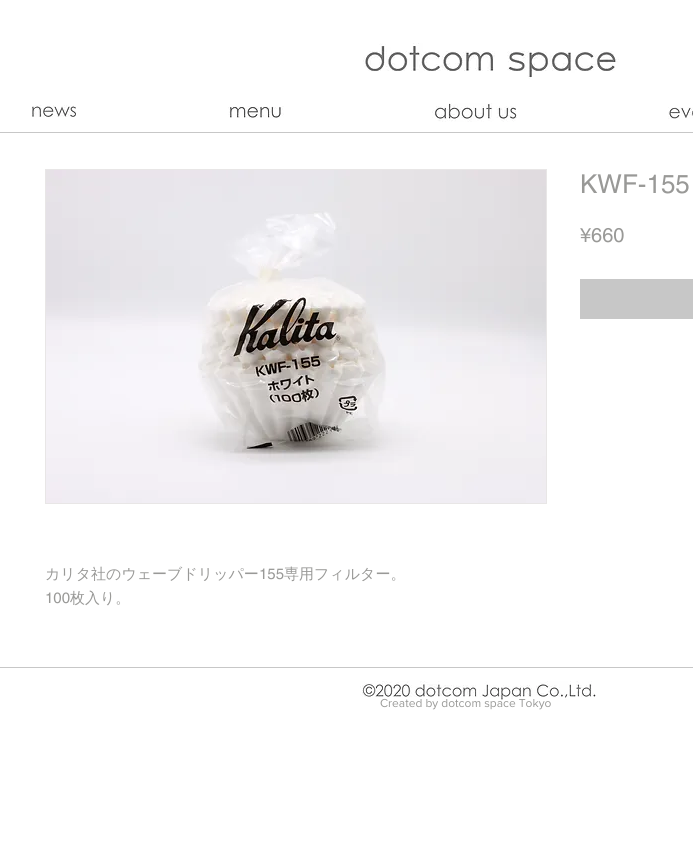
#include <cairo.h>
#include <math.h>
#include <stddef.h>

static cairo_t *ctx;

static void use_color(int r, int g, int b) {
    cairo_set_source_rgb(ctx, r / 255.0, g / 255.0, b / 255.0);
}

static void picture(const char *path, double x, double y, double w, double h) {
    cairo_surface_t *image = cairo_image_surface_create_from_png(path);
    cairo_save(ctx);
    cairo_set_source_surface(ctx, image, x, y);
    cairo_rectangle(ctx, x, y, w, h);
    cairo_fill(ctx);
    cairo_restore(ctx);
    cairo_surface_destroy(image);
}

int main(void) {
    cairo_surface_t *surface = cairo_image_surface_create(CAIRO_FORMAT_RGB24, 693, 863);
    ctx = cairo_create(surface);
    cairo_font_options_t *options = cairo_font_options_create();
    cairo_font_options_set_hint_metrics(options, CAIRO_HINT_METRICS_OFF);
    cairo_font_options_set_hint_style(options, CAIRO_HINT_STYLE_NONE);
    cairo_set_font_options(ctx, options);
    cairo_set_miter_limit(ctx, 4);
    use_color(255, 255, 255);
    cairo_paint(ctx);
    picture("img1.png", 363, 43, 256, 36);
    picture("img2.png", 32, 105, 44, 12);
    picture("img3.png", 228, 106, 56, 12);
    picture("img4.png", 432, 103, 85, 19);
    picture("img5.png", 668, 107, 25, 12);
    use_color(199, 199, 199);
    cairo_rectangle(ctx, 0, 132, 693, 1);
    cairo_fill(ctx);
    cairo_select_font_face(ctx, "helvetica", CAIRO_FONT_SLANT_NORMAL, CAIRO_FONT_WEIGHT_NORMAL);
    cairo_set_font_size(ctx, 26);
    use_color(153, 153, 151);
    cairo_move_to(ctx, 580, 193);
    cairo_show_text(ctx, "KWF-155");
    cairo_set_font_size(ctx, 20);
    cairo_move_to(ctx, 580, 242);
    cairo_show_text(ctx, "¥660");
    use_color(199, 199, 199);
    cairo_rectangle(ctx, 580, 279, 113, 40);
    cairo_fill(ctx);
    cairo_rectangle(ctx, 45.5, 169.5, 501, 334);
    use_color(232, 230, 230);
    cairo_set_line_width(ctx, 1);
    cairo_stroke(ctx);
    picture("img6.png", 46, 170, 500, 333);
    cairo_select_font_face(ctx, "WenQuanYi Zen Hei Medium", CAIRO_FONT_SLANT_NORMAL, CAIRO_FONT_WEIGHT_NORMAL);
    cairo_set_font_size(ctx, 15);
    use_color(153, 153, 151);
    cairo_move_to(ctx, 45, 579);
    cairo_show_text(ctx, "カリタ社のウェーブドリッパー");
    cairo_select_font_face(ctx, "helvetica", CAIRO_FONT_SLANT_NORMAL, CAIRO_FONT_WEIGHT_NORMAL);
    cairo_move_to(ctx, 259, 579);
    cairo_show_text(ctx, "155");
    cairo_select_font_face(ctx, "WenQuanYi Zen Hei Medium", CAIRO_FONT_SLANT_NORMAL, CAIRO_FONT_WEIGHT_NORMAL);
    cairo_move_to(ctx, 284, 579);
    cairo_show_text(ctx, "専用フィルター。");
    cairo_select_font_face(ctx, "helvetica", CAIRO_FONT_SLANT_NORMAL, CAIRO_FONT_WEIGHT_NORMAL);
    cairo_move_to(ctx, 45, 603);
    cairo_show_text(ctx, "100");
    cairo_select_font_face(ctx, "WenQuanYi Zen Hei Medium", CAIRO_FONT_SLANT_NORMAL, CAIRO_FONT_WEIGHT_NORMAL);
    cairo_move_to(ctx, 70, 603);
    cairo_show_text(ctx, "枚入り。");
    use_color(199, 199, 199);
    cairo_rectangle(ctx, 0, 667, 693, 1);
    cairo_fill(ctx);
    picture("img7.png", 360, 681, 236, 19);
    cairo_select_font_face(ctx, "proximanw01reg", CAIRO_FONT_SLANT_NORMAL, CAIRO_FONT_WEIGHT_NORMAL);
    cairo_set_font_size(ctx, 12);
    use_color(153, 153, 151);
    cairo_move_to(ctx, 380, 707);
    cairo_show_text(ctx, "Created by dotcom space Tokyo");
    cairo_surface_write_to_png(surface, "result.png");
    cairo_font_options_destroy(options);
    cairo_destroy(ctx);
    cairo_surface_destroy(surface);
    return 0;
}
